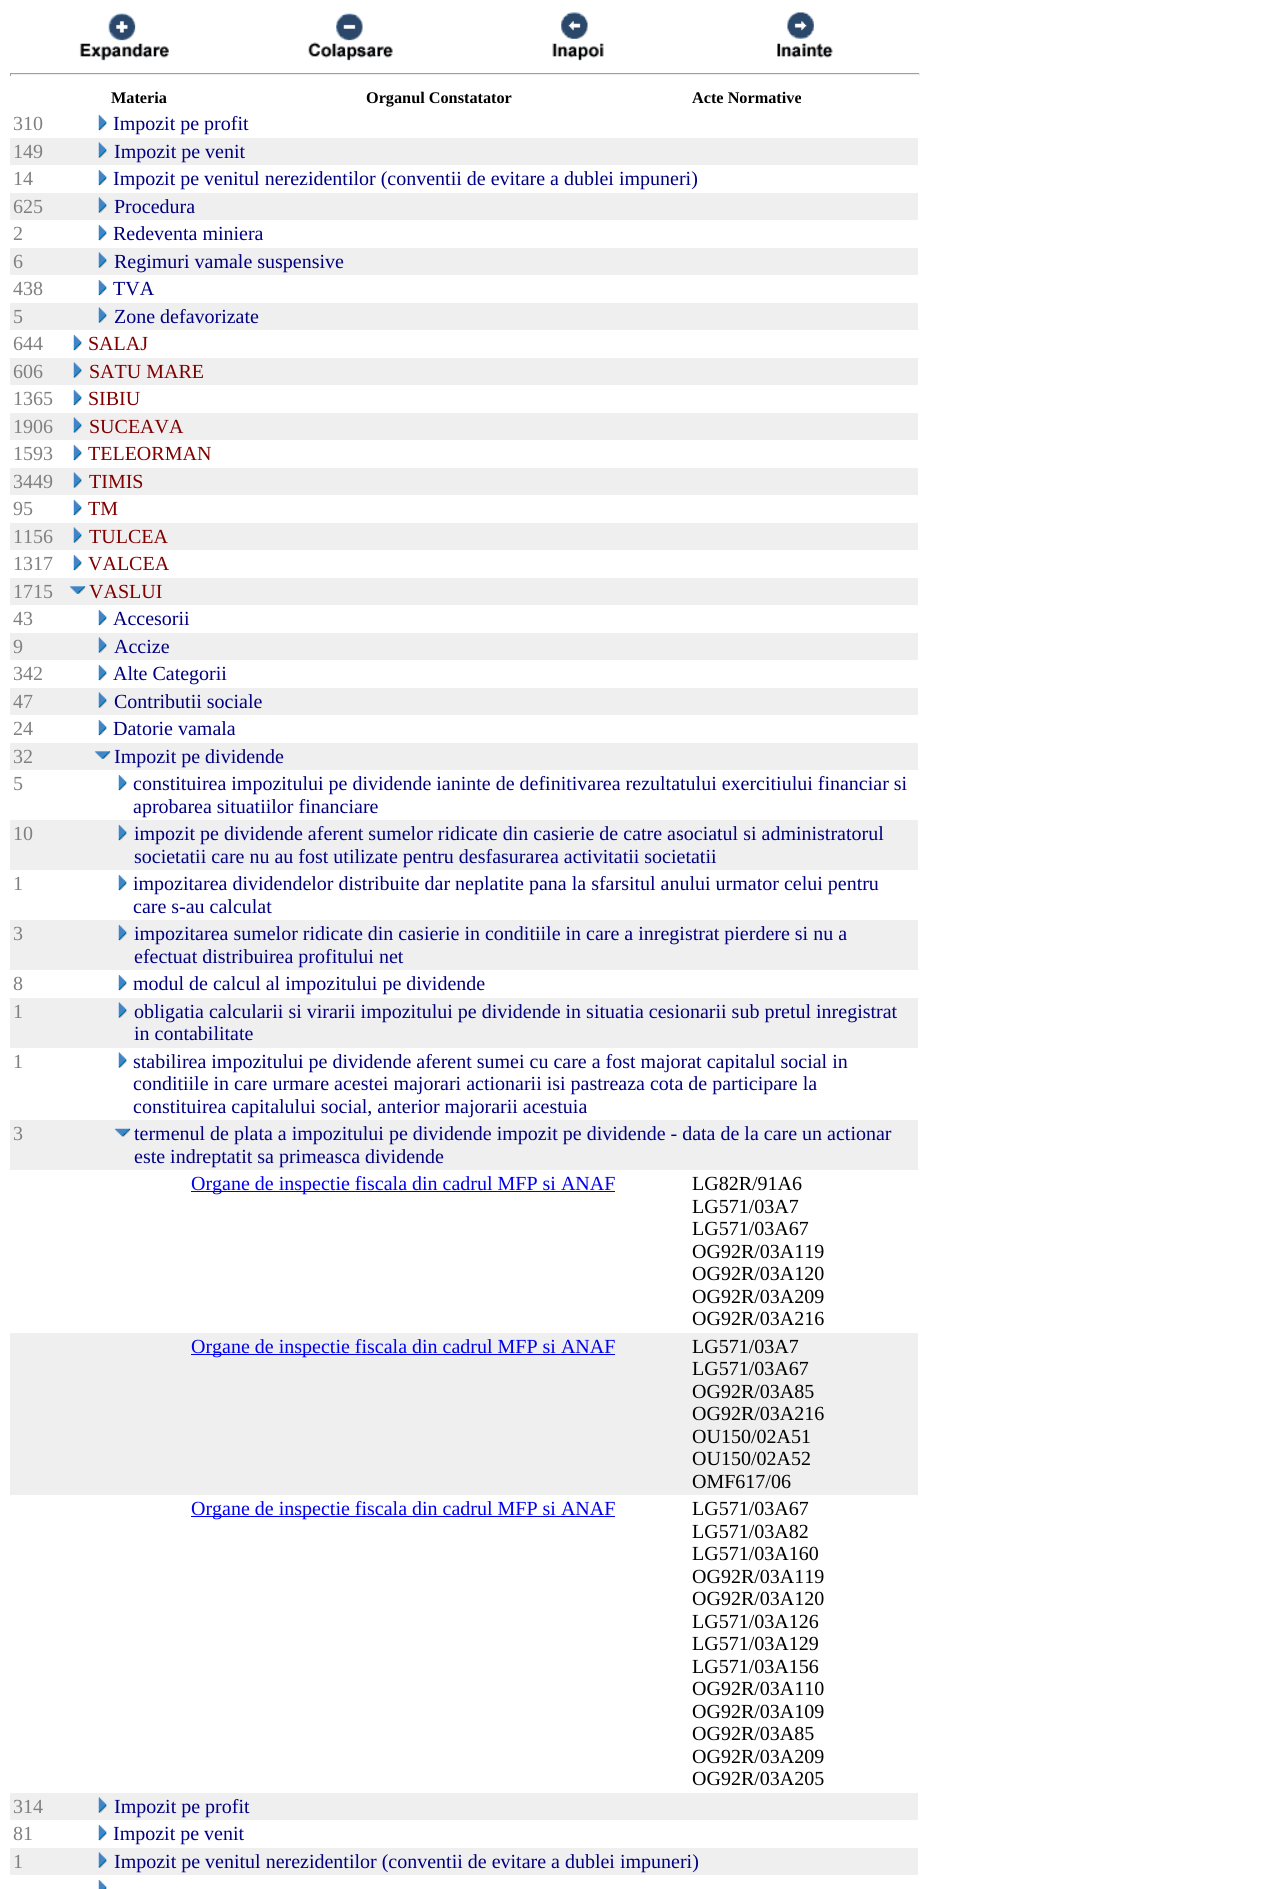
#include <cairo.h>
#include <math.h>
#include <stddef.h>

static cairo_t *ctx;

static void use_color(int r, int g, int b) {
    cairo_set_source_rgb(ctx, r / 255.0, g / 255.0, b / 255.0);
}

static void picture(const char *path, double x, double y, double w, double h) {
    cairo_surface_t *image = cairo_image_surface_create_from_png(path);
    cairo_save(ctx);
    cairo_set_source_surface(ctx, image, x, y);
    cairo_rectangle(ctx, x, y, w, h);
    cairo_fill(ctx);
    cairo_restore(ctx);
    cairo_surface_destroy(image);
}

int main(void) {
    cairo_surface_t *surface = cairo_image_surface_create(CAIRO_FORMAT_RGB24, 1278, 1889);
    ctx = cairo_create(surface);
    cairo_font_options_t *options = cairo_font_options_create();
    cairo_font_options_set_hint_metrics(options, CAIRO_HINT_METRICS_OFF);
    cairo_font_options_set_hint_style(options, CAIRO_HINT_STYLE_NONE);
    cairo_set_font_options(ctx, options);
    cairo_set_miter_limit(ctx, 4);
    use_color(255, 255, 255);
    cairo_paint(ctx);
    picture("img1.png", 79, 13, 90, 48);
    picture("img2.png", 308, 13, 85, 48);
    picture("img3.png", 552, 12, 52, 49);
    picture("img4.png", 777, 12, 56, 46);
    use_color(159, 159, 159);
    cairo_rectangle(ctx, 10, 73, 910, 1);
    cairo_fill(ctx);
    use_color(238, 238, 238);
    cairo_rectangle(ctx, 919, 73, 1, 3);
    cairo_fill(ctx);
    cairo_rectangle(ctx, 10, 74, 910, 1);
    cairo_fill(ctx);
    use_color(159, 159, 159);
    cairo_rectangle(ctx, 10, 73, 1, 3);
    cairo_fill(ctx);
    cairo_select_font_face(ctx, "Liberation Serif", CAIRO_FONT_SLANT_NORMAL, CAIRO_FONT_WEIGHT_BOLD);
    cairo_set_font_size(ctx, 16.25);
    use_color(0, 0, 0);
    cairo_move_to(ctx, 111, 103);
    cairo_show_text(ctx, "Materia");
    cairo_move_to(ctx, 366, 103);
    cairo_show_text(ctx, "Organul Constatator");
    cairo_move_to(ctx, 692, 103);
    cairo_show_text(ctx, "Acte Normative");
    cairo_select_font_face(ctx, "Liberation Serif", CAIRO_FONT_SLANT_NORMAL, CAIRO_FONT_WEIGHT_NORMAL);
    cairo_set_font_size(ctx, 20);
    use_color(128, 128, 128);
    cairo_move_to(ctx, 13, 130);
    cairo_show_text(ctx, "310");
    picture("img5.png", 98, 114, 9, 17);
    use_color(0, 0, 128);
    cairo_move_to(ctx, 113, 130);
    cairo_show_text(ctx, "Impozit pe profit");
    use_color(239, 239, 239);
    cairo_rectangle(ctx, 10, 138, 908, 27);
    cairo_fill(ctx);
    use_color(128, 128, 128);
    cairo_move_to(ctx, 13, 158);
    cairo_show_text(ctx, "149");
    picture("img6.png", 98, 142, 9, 16);
    use_color(0, 0, 128);
    cairo_move_to(ctx, 114, 158);
    cairo_show_text(ctx, "Impozit pe venit");
    use_color(128, 128, 128);
    cairo_move_to(ctx, 13, 185);
    cairo_show_text(ctx, "14");
    picture("img5.png", 98, 169, 9, 17);
    use_color(0, 0, 128);
    cairo_move_to(ctx, 113, 185);
    cairo_show_text(ctx, "Impozit pe venitul nerezidentilor (conventii de evitare a dublei impuneri)");
    use_color(239, 239, 239);
    cairo_rectangle(ctx, 10, 193, 908, 27);
    cairo_fill(ctx);
    use_color(128, 128, 128);
    cairo_move_to(ctx, 13, 213);
    cairo_show_text(ctx, "625");
    picture("img6.png", 98, 197, 9, 16);
    use_color(0, 0, 128);
    cairo_move_to(ctx, 114, 213);
    cairo_show_text(ctx, "Procedura");
    use_color(128, 128, 128);
    cairo_move_to(ctx, 13, 240);
    cairo_show_text(ctx, "2");
    picture("img5.png", 98, 224, 9, 17);
    use_color(0, 0, 128);
    cairo_move_to(ctx, 113, 240);
    cairo_show_text(ctx, "Redeventa miniera");
    use_color(239, 239, 239);
    cairo_rectangle(ctx, 10, 248, 908, 27);
    cairo_fill(ctx);
    use_color(128, 128, 128);
    cairo_move_to(ctx, 13, 268);
    cairo_show_text(ctx, "6");
    picture("img6.png", 98, 252, 9, 16);
    use_color(0, 0, 128);
    cairo_move_to(ctx, 114, 268);
    cairo_show_text(ctx, "Regimuri vamale suspensive");
    use_color(128, 128, 128);
    cairo_move_to(ctx, 13, 295);
    cairo_show_text(ctx, "438");
    picture("img5.png", 98, 279, 9, 17);
    use_color(0, 0, 128);
    cairo_move_to(ctx, 113, 295);
    cairo_show_text(ctx, "TVA");
    use_color(239, 239, 239);
    cairo_rectangle(ctx, 10, 303, 908, 27);
    cairo_fill(ctx);
    use_color(128, 128, 128);
    cairo_move_to(ctx, 13, 323);
    cairo_show_text(ctx, "5");
    picture("img6.png", 98, 307, 9, 16);
    use_color(0, 0, 128);
    cairo_move_to(ctx, 114, 323);
    cairo_show_text(ctx, "Zone defavorizate");
    use_color(128, 128, 128);
    cairo_move_to(ctx, 13, 350);
    cairo_show_text(ctx, "644");
    picture("img7.png", 73, 334, 9, 17);
    use_color(128, 0, 0);
    cairo_move_to(ctx, 88, 350);
    cairo_show_text(ctx, "SALAJ");
    use_color(239, 239, 239);
    cairo_rectangle(ctx, 10, 358, 908, 27);
    cairo_fill(ctx);
    use_color(128, 128, 128);
    cairo_move_to(ctx, 13, 378);
    cairo_show_text(ctx, "606");
    picture("img8.png", 73, 362, 9, 16);
    use_color(128, 0, 0);
    cairo_move_to(ctx, 89, 378);
    cairo_show_text(ctx, "SATU MARE");
    use_color(128, 128, 128);
    cairo_move_to(ctx, 13, 405);
    cairo_show_text(ctx, "1365");
    picture("img7.png", 73, 389, 9, 17);
    use_color(128, 0, 0);
    cairo_move_to(ctx, 88, 405);
    cairo_show_text(ctx, "SIBIU");
    use_color(239, 239, 239);
    cairo_rectangle(ctx, 10, 413, 908, 27);
    cairo_fill(ctx);
    use_color(128, 128, 128);
    cairo_move_to(ctx, 13, 433);
    cairo_show_text(ctx, "1906");
    picture("img8.png", 73, 417, 9, 16);
    use_color(128, 0, 0);
    cairo_move_to(ctx, 89, 433);
    cairo_show_text(ctx, "SUCEAVA");
    use_color(128, 128, 128);
    cairo_move_to(ctx, 13, 460);
    cairo_show_text(ctx, "1593");
    picture("img7.png", 73, 444, 9, 17);
    use_color(128, 0, 0);
    cairo_move_to(ctx, 88, 460);
    cairo_show_text(ctx, "TELEORMAN");
    use_color(239, 239, 239);
    cairo_rectangle(ctx, 10, 468, 908, 27);
    cairo_fill(ctx);
    use_color(128, 128, 128);
    cairo_move_to(ctx, 13, 488);
    cairo_show_text(ctx, "3449");
    picture("img8.png", 73, 472, 9, 16);
    use_color(128, 0, 0);
    cairo_move_to(ctx, 89, 488);
    cairo_show_text(ctx, "TIMIS");
    use_color(128, 128, 128);
    cairo_move_to(ctx, 13, 515);
    cairo_show_text(ctx, "95");
    picture("img7.png", 73, 499, 9, 17);
    use_color(128, 0, 0);
    cairo_move_to(ctx, 88, 515);
    cairo_show_text(ctx, "TM");
    use_color(239, 239, 239);
    cairo_rectangle(ctx, 10, 523, 908, 27);
    cairo_fill(ctx);
    use_color(128, 128, 128);
    cairo_move_to(ctx, 13, 543);
    cairo_show_text(ctx, "1156");
    picture("img8.png", 73, 527, 9, 16);
    use_color(128, 0, 0);
    cairo_move_to(ctx, 89, 543);
    cairo_show_text(ctx, "TULCEA");
    use_color(128, 128, 128);
    cairo_move_to(ctx, 13, 570);
    cairo_show_text(ctx, "1317");
    picture("img7.png", 73, 554, 9, 17);
    use_color(128, 0, 0);
    cairo_move_to(ctx, 88, 570);
    cairo_show_text(ctx, "VALCEA");
    use_color(239, 239, 239);
    cairo_rectangle(ctx, 10, 578, 908, 27);
    cairo_fill(ctx);
    use_color(128, 128, 128);
    cairo_move_to(ctx, 13, 598);
    cairo_show_text(ctx, "1715");
    picture("img9.png", 69, 586, 17, 8);
    use_color(128, 0, 0);
    cairo_move_to(ctx, 89, 598);
    cairo_show_text(ctx, "VASLUI");
    use_color(128, 128, 128);
    cairo_move_to(ctx, 13, 625);
    cairo_show_text(ctx, "43");
    picture("img5.png", 98, 609, 9, 17);
    use_color(0, 0, 128);
    cairo_move_to(ctx, 113, 625);
    cairo_show_text(ctx, "Accesorii");
    use_color(239, 239, 239);
    cairo_rectangle(ctx, 10, 633, 908, 27);
    cairo_fill(ctx);
    use_color(128, 128, 128);
    cairo_move_to(ctx, 13, 653);
    cairo_show_text(ctx, "9");
    picture("img6.png", 98, 637, 9, 16);
    use_color(0, 0, 128);
    cairo_move_to(ctx, 114, 653);
    cairo_show_text(ctx, "Accize");
    use_color(128, 128, 128);
    cairo_move_to(ctx, 13, 680);
    cairo_show_text(ctx, "342");
    picture("img5.png", 98, 664, 9, 17);
    use_color(0, 0, 128);
    cairo_move_to(ctx, 113, 680);
    cairo_show_text(ctx, "Alte Categorii");
    use_color(239, 239, 239);
    cairo_rectangle(ctx, 10, 688, 908, 27);
    cairo_fill(ctx);
    use_color(128, 128, 128);
    cairo_move_to(ctx, 13, 708);
    cairo_show_text(ctx, "47");
    picture("img6.png", 98, 692, 9, 16);
    use_color(0, 0, 128);
    cairo_move_to(ctx, 114, 708);
    cairo_show_text(ctx, "Contributii sociale");
    use_color(128, 128, 128);
    cairo_move_to(ctx, 13, 735);
    cairo_show_text(ctx, "24");
    picture("img5.png", 98, 719, 9, 17);
    use_color(0, 0, 128);
    cairo_move_to(ctx, 113, 735);
    cairo_show_text(ctx, "Datorie vamala");
    use_color(239, 239, 239);
    cairo_rectangle(ctx, 10, 743, 908, 27);
    cairo_fill(ctx);
    use_color(128, 128, 128);
    cairo_move_to(ctx, 13, 763);
    cairo_show_text(ctx, "32");
    picture("img10.png", 94, 751, 17, 8);
    use_color(0, 0, 128);
    cairo_move_to(ctx, 114, 763);
    cairo_show_text(ctx, "Impozit pe dividende");
    use_color(128, 128, 128);
    cairo_move_to(ctx, 13, 790);
    cairo_show_text(ctx, "5");
    picture("img11.png", 118, 774, 9, 17);
    use_color(0, 0, 128);
    cairo_move_to(ctx, 133, 790);
    cairo_show_text(ctx, "constituirea impozitului pe dividende ianinte de definitivarea rezultatului exercitiului financiar si");
    cairo_move_to(ctx, 133, 813);
    cairo_show_text(ctx, "aprobarea situatiilor financiare");
    use_color(239, 239, 239);
    cairo_rectangle(ctx, 10, 820, 908, 50);
    cairo_fill(ctx);
    use_color(128, 128, 128);
    cairo_move_to(ctx, 13, 840);
    cairo_show_text(ctx, "10");
    picture("img12.png", 118, 824, 9, 17);
    use_color(0, 0, 128);
    cairo_move_to(ctx, 134, 840);
    cairo_show_text(ctx, "impozit pe dividende aferent sumelor ridicate din casierie de catre asociatul si administratorul");
    cairo_move_to(ctx, 134, 863);
    cairo_show_text(ctx, "societatii care nu au fost utilizate pentru desfasurarea activitatii societatii");
    use_color(128, 128, 128);
    cairo_move_to(ctx, 13, 890);
    cairo_show_text(ctx, "1");
    picture("img5.png", 118, 874, 9, 17);
    use_color(0, 0, 128);
    cairo_move_to(ctx, 133, 890);
    cairo_show_text(ctx, "impozitarea dividendelor distribuite dar neplatite pana la sfarsitul anului urmator celui pentru");
    cairo_move_to(ctx, 133, 913);
    cairo_show_text(ctx, "care s-au calculat");
    use_color(239, 239, 239);
    cairo_rectangle(ctx, 10, 920, 908, 50);
    cairo_fill(ctx);
    use_color(128, 128, 128);
    cairo_move_to(ctx, 13, 940);
    cairo_show_text(ctx, "3");
    picture("img12.png", 118, 924, 9, 17);
    use_color(0, 0, 128);
    cairo_move_to(ctx, 134, 940);
    cairo_show_text(ctx, "impozitarea sumelor ridicate din casierie in conditiile in care a inregistrat pierdere si nu a");
    cairo_move_to(ctx, 134, 963);
    cairo_show_text(ctx, "efectuat distribuirea profitului net");
    use_color(128, 128, 128);
    cairo_move_to(ctx, 13, 990);
    cairo_show_text(ctx, "8");
    picture("img5.png", 118, 974, 9, 17);
    use_color(0, 0, 128);
    cairo_move_to(ctx, 133, 990);
    cairo_show_text(ctx, "modul de calcul al impozitului pe dividende");
    use_color(239, 239, 239);
    cairo_rectangle(ctx, 10, 998, 908, 50);
    cairo_fill(ctx);
    use_color(128, 128, 128);
    cairo_move_to(ctx, 13, 1018);
    cairo_show_text(ctx, "1");
    picture("img6.png", 118, 1002, 9, 16);
    use_color(0, 0, 128);
    cairo_move_to(ctx, 134, 1018);
    cairo_show_text(ctx, "obligatia calcularii si virarii impozitului pe dividende in situatia cesionarii sub pretul inregistrat");
    cairo_move_to(ctx, 134, 1040);
    cairo_show_text(ctx, "in contabilitate");
    use_color(128, 128, 128);
    cairo_move_to(ctx, 13, 1068);
    cairo_show_text(ctx, "1");
    picture("img13.png", 118, 1052, 9, 16);
    use_color(0, 0, 128);
    cairo_move_to(ctx, 133, 1068);
    cairo_show_text(ctx, "stabilirea impozitului pe dividende aferent sumei cu care a fost majorat capitalul social in");
    cairo_move_to(ctx, 133, 1090);
    cairo_show_text(ctx, "conditiile in care urmare acestei majorari actionarii isi pastreaza cota de participare la");
    cairo_move_to(ctx, 133, 1113);
    cairo_show_text(ctx, "constituirea capitalului social, anterior majorarii acestuia");
    use_color(239, 239, 239);
    cairo_rectangle(ctx, 10, 1120, 908, 50);
    cairo_fill(ctx);
    use_color(128, 128, 128);
    cairo_move_to(ctx, 13, 1140);
    cairo_show_text(ctx, "3");
    picture("img14.png", 114, 1128, 17, 9);
    use_color(0, 0, 128);
    cairo_move_to(ctx, 134, 1140);
    cairo_show_text(ctx, "termenul de plata a impozitului pe dividende impozit pe dividende - data de la care un actionar");
    cairo_move_to(ctx, 134, 1163);
    cairo_show_text(ctx, "este indreptatit sa primeasca dividende");
    use_color(0, 0, 238);
    cairo_rectangle(ctx, 191, 1191, 424, 1);
    cairo_fill(ctx);
    cairo_move_to(ctx, 191, 1190);
    cairo_show_text(ctx, "Organe de inspectie fiscala din cadrul MFP si ANAF");
    use_color(0, 0, 0);
    cairo_move_to(ctx, 692, 1190);
    cairo_show_text(ctx, "LG82R/91A6");
    cairo_move_to(ctx, 692, 1213);
    cairo_show_text(ctx, "LG571/03A7");
    cairo_move_to(ctx, 692, 1235);
    cairo_show_text(ctx, "LG571/03A67");
    cairo_move_to(ctx, 692, 1258);
    cairo_show_text(ctx, "OG92R/03A119");
    cairo_move_to(ctx, 692, 1280);
    cairo_show_text(ctx, "OG92R/03A120");
    cairo_move_to(ctx, 692, 1303);
    cairo_show_text(ctx, "OG92R/03A209");
    cairo_move_to(ctx, 692, 1325);
    cairo_show_text(ctx, "OG92R/03A216");
    use_color(239, 239, 239);
    cairo_rectangle(ctx, 10, 1333, 908, 162);
    cairo_fill(ctx);
    use_color(0, 0, 238);
    cairo_rectangle(ctx, 191, 1354, 424, 1);
    cairo_fill(ctx);
    cairo_move_to(ctx, 191, 1353);
    cairo_show_text(ctx, "Organe de inspectie fiscala din cadrul MFP si ANAF");
    use_color(0, 0, 0);
    cairo_move_to(ctx, 692, 1353);
    cairo_show_text(ctx, "LG571/03A7");
    cairo_move_to(ctx, 692, 1375);
    cairo_show_text(ctx, "LG571/03A67");
    cairo_move_to(ctx, 692, 1398);
    cairo_show_text(ctx, "OG92R/03A85");
    cairo_move_to(ctx, 692, 1420);
    cairo_show_text(ctx, "OG92R/03A216");
    cairo_move_to(ctx, 692, 1443);
    cairo_show_text(ctx, "OU150/02A51");
    cairo_move_to(ctx, 692, 1465);
    cairo_show_text(ctx, "OU150/02A52");
    cairo_move_to(ctx, 692, 1488);
    cairo_show_text(ctx, "OMF617/06");
    use_color(0, 0, 238);
    cairo_rectangle(ctx, 191, 1516, 424, 1);
    cairo_fill(ctx);
    cairo_move_to(ctx, 191, 1515);
    cairo_show_text(ctx, "Organe de inspectie fiscala din cadrul MFP si ANAF");
    use_color(0, 0, 0);
    cairo_move_to(ctx, 692, 1515);
    cairo_show_text(ctx, "LG571/03A67");
    cairo_move_to(ctx, 692, 1538);
    cairo_show_text(ctx, "LG571/03A82");
    cairo_move_to(ctx, 692, 1560);
    cairo_show_text(ctx, "LG571/03A160");
    cairo_move_to(ctx, 692, 1583);
    cairo_show_text(ctx, "OG92R/03A119");
    cairo_move_to(ctx, 692, 1605);
    cairo_show_text(ctx, "OG92R/03A120");
    cairo_move_to(ctx, 692, 1628);
    cairo_show_text(ctx, "LG571/03A126");
    cairo_move_to(ctx, 692, 1650);
    cairo_show_text(ctx, "LG571/03A129");
    cairo_move_to(ctx, 692, 1673);
    cairo_show_text(ctx, "LG571/03A156");
    cairo_move_to(ctx, 692, 1695);
    cairo_show_text(ctx, "OG92R/03A110");
    cairo_move_to(ctx, 692, 1718);
    cairo_show_text(ctx, "OG92R/03A109");
    cairo_move_to(ctx, 692, 1740);
    cairo_show_text(ctx, "OG92R/03A85");
    cairo_move_to(ctx, 692, 1763);
    cairo_show_text(ctx, "OG92R/03A209");
    cairo_move_to(ctx, 692, 1785);
    cairo_show_text(ctx, "OG92R/03A205");
    use_color(239, 239, 239);
    cairo_rectangle(ctx, 10, 1793, 908, 27);
    cairo_fill(ctx);
    use_color(128, 128, 128);
    cairo_move_to(ctx, 13, 1813);
    cairo_show_text(ctx, "314");
    picture("img6.png", 98, 1797, 9, 16);
    use_color(0, 0, 128);
    cairo_move_to(ctx, 114, 1813);
    cairo_show_text(ctx, "Impozit pe profit");
    use_color(128, 128, 128);
    cairo_move_to(ctx, 13, 1840);
    cairo_show_text(ctx, "81");
    picture("img5.png", 98, 1824, 9, 17);
    use_color(0, 0, 128);
    cairo_move_to(ctx, 113, 1840);
    cairo_show_text(ctx, "Impozit pe venit");
    use_color(239, 239, 239);
    cairo_rectangle(ctx, 10, 1848, 908, 27);
    cairo_fill(ctx);
    use_color(128, 128, 128);
    cairo_move_to(ctx, 13, 1868);
    cairo_show_text(ctx, "1");
    picture("img15.png", 98, 1852, 9, 16);
    use_color(0, 0, 128);
    cairo_move_to(ctx, 114, 1868);
    cairo_show_text(ctx, "Impozit pe venitul nerezidentilor (conventii de evitare a dublei impuneri)");
    picture("img16.png", 98, 1879, 9, 10);
    cairo_surface_write_to_png(surface, "result.png");
    cairo_font_options_destroy(options);
    cairo_destroy(ctx);
    cairo_surface_destroy(surface);
    return 0;
}
